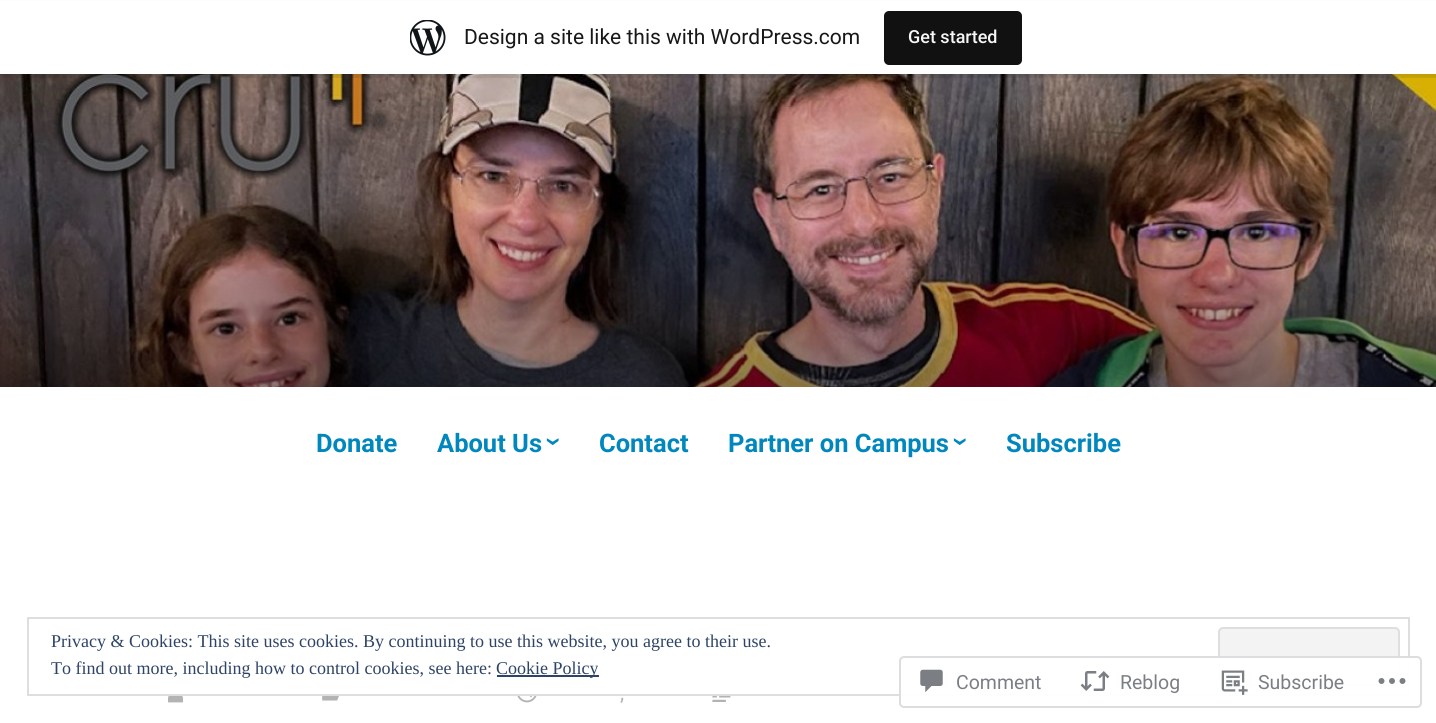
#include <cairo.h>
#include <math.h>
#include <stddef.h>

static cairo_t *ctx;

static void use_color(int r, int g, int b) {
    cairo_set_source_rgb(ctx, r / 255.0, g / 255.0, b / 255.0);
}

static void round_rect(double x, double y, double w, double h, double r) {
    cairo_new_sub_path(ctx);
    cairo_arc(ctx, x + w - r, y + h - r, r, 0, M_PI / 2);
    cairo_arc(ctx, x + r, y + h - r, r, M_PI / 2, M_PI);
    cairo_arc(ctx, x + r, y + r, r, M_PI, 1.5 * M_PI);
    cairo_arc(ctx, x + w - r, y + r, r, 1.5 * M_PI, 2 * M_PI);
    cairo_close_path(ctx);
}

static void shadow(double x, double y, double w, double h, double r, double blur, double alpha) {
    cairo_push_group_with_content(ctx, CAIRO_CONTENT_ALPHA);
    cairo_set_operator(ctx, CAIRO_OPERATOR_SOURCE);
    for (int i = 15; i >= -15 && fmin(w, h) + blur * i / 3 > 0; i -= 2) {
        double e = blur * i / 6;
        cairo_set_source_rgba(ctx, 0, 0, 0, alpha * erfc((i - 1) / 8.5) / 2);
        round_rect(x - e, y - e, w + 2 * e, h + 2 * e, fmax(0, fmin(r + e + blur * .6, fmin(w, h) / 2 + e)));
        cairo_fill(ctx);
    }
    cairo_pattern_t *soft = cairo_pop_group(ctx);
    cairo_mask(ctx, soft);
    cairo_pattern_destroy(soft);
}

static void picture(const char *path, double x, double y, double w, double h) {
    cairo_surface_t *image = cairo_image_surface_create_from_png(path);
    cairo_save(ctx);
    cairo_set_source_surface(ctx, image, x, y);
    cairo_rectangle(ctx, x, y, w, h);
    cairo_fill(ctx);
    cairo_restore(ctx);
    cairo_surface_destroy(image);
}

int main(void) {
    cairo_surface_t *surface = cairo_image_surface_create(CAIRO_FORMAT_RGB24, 1436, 723);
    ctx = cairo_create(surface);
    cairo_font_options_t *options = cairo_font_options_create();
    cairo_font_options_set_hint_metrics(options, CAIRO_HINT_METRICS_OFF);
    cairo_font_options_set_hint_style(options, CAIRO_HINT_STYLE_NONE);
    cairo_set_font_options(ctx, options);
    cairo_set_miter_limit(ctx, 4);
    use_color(255, 255, 255);
    cairo_paint(ctx);
    picture("img2.png", 0, 74, 1436, 313);
    use_color(0, 0, 0);
    shadow(0, 2, 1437, 73, 0, 1.5, 0.05);
    cairo_set_source_rgba(ctx, 0, 0, 0, 0.08);
    cairo_new_path(ctx);
    cairo_move_to(ctx, 2, 74);
    cairo_line_to(ctx, 2, 78);
    cairo_line_to(ctx, 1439, 78);
    cairo_line_to(ctx, 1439, 5);
    cairo_line_to(ctx, 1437, 5);
    cairo_line_to(ctx, 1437, 74);
    cairo_close_path(ctx);
    cairo_fill(ctx);
    use_color(255, 255, 255);
    cairo_rectangle(ctx, 0, 1, 1436, 73);
    cairo_fill(ctx);
    picture("img1.png", 410, 20, 36, 36);
    cairo_select_font_face(ctx, "Roboto", CAIRO_FONT_SLANT_NORMAL, CAIRO_FONT_WEIGHT_NORMAL);
    cairo_set_font_size(ctx, 21);
    use_color(23, 23, 23);
    cairo_move_to(ctx, 464, 44);
    cairo_show_text(ctx, "Design a site like this with WordPress.com");
    use_color(17, 17, 17);
    round_rect(884, 11, 138, 54, 5);
    cairo_fill(ctx);
    cairo_select_font_face(ctx, "Roboto Medium", CAIRO_FONT_SLANT_NORMAL, CAIRO_FONT_WEIGHT_NORMAL);
    cairo_set_font_size(ctx, 18);
    use_color(246, 247, 247);
    cairo_move_to(ctx, 908, 43);
    cairo_show_text(ctx, "Get started");
    cairo_select_font_face(ctx, "Roboto", CAIRO_FONT_SLANT_NORMAL, CAIRO_FONT_WEIGHT_BOLD);
    cairo_set_font_size(ctx, 25.5);
    use_color(0, 135, 190);
    cairo_move_to(ctx, 316, 452);
    cairo_show_text(ctx, "Donate");
    cairo_move_to(ctx, 437, 452);
    cairo_show_text(ctx, "About Us");
    cairo_set_font_size(ctx, 30);
    cairo_save(ctx);
    cairo_translate(ctx, 545, 437);
    cairo_rotate(ctx, 90 * M_PI / 180);
    cairo_move_to(ctx, 0, 0);
    cairo_show_text(ctx, "›");
    cairo_restore(ctx);
    cairo_set_font_size(ctx, 25.5);
    cairo_move_to(ctx, 599, 452);
    cairo_show_text(ctx, "Contact");
    cairo_move_to(ctx, 728, 452);
    cairo_show_text(ctx, "Partner on Campus");
    cairo_set_font_size(ctx, 30);
    cairo_save(ctx);
    cairo_translate(ctx, 952, 437);
    cairo_rotate(ctx, 90 * M_PI / 180);
    cairo_move_to(ctx, 0, 0);
    cairo_show_text(ctx, "›");
    cairo_restore(ctx);
    cairo_set_font_size(ctx, 25.5);
    cairo_move_to(ctx, 1006, 452);
    cairo_show_text(ctx, "Subscribe");
    picture("img3.png", 168, 696, 15, 7);
    picture("img4.png", 322, 696, 17, 5);
    picture("img5.png", 517, 696, 20, 7);
    cairo_select_font_face(ctx, "Roboto", CAIRO_FONT_SLANT_NORMAL, CAIRO_FONT_WEIGHT_NORMAL);
    cairo_set_font_size(ctx, 21);
    use_color(179, 179, 177);
    cairo_move_to(ctx, 620, 700);
    cairo_show_text(ctx, ",");
    picture("img6.png", 712, 696, 19, 6);
    cairo_rectangle(ctx, 28, 618, 1381, 77);
    use_color(222, 222, 222);
    cairo_stroke(ctx);
    cairo_select_font_face(ctx, "Liberation Serif", CAIRO_FONT_SLANT_NORMAL, CAIRO_FONT_WEIGHT_NORMAL);
    cairo_set_font_size(ctx, 18);
    use_color(46, 68, 103);
    cairo_move_to(ctx, 51, 647);
    cairo_show_text(ctx, "Privacy & Cookies: This site uses cookies. By continuing to use this website, you agree to their use.");
    use_color(243, 243, 243);
    round_rect(1219, 628, 180, 57, 4);
    cairo_fill_preserve(ctx);
    use_color(222, 222, 222);
    cairo_stroke(ctx);
    use_color(46, 68, 103);
    cairo_move_to(ctx, 51, 674);
    cairo_show_text(ctx, "To find out more, including how to control cookies, see here:");
    cairo_rectangle(ctx, 497, 675, 102, 2);
    cairo_fill(ctx);
    cairo_move_to(ctx, 496, 674);
    cairo_show_text(ctx, "Cookie Policy");
    cairo_set_source_rgba(ctx, 1, 1, 1, 0.98);
    round_rect(899, 656, 523, 52, 5);
    cairo_fill(ctx);
    round_rect(900, 657, 521, 50, 4);
    cairo_set_source_rgba(ctx, 0.863, 0.863, 0.871, 0.98);
    cairo_stroke(ctx);
    picture("img7.png", 920, 669, 23, 24);
    cairo_select_font_face(ctx, "Roboto", CAIRO_FONT_SLANT_NORMAL, CAIRO_FONT_WEIGHT_NORMAL);
    cairo_set_font_size(ctx, 19.5);
    use_color(123, 127, 133);
    cairo_move_to(ctx, 956, 689);
    cairo_show_text(ctx, "Comment");
    picture("img8.png", 1080, 671, 30, 20);
    cairo_move_to(ctx, 1120, 689);
    cairo_show_text(ctx, "Reblog");
    picture("img9.png", 1221, 670, 27, 25);
    cairo_move_to(ctx, 1258, 689);
    cairo_show_text(ctx, "Subscribe");
    picture("img10.png", 1378, 678, 28, 6);
    cairo_surface_write_to_png(surface, "result.png");
    cairo_font_options_destroy(options);
    cairo_destroy(ctx);
    cairo_surface_destroy(surface);
    return 0;
}
